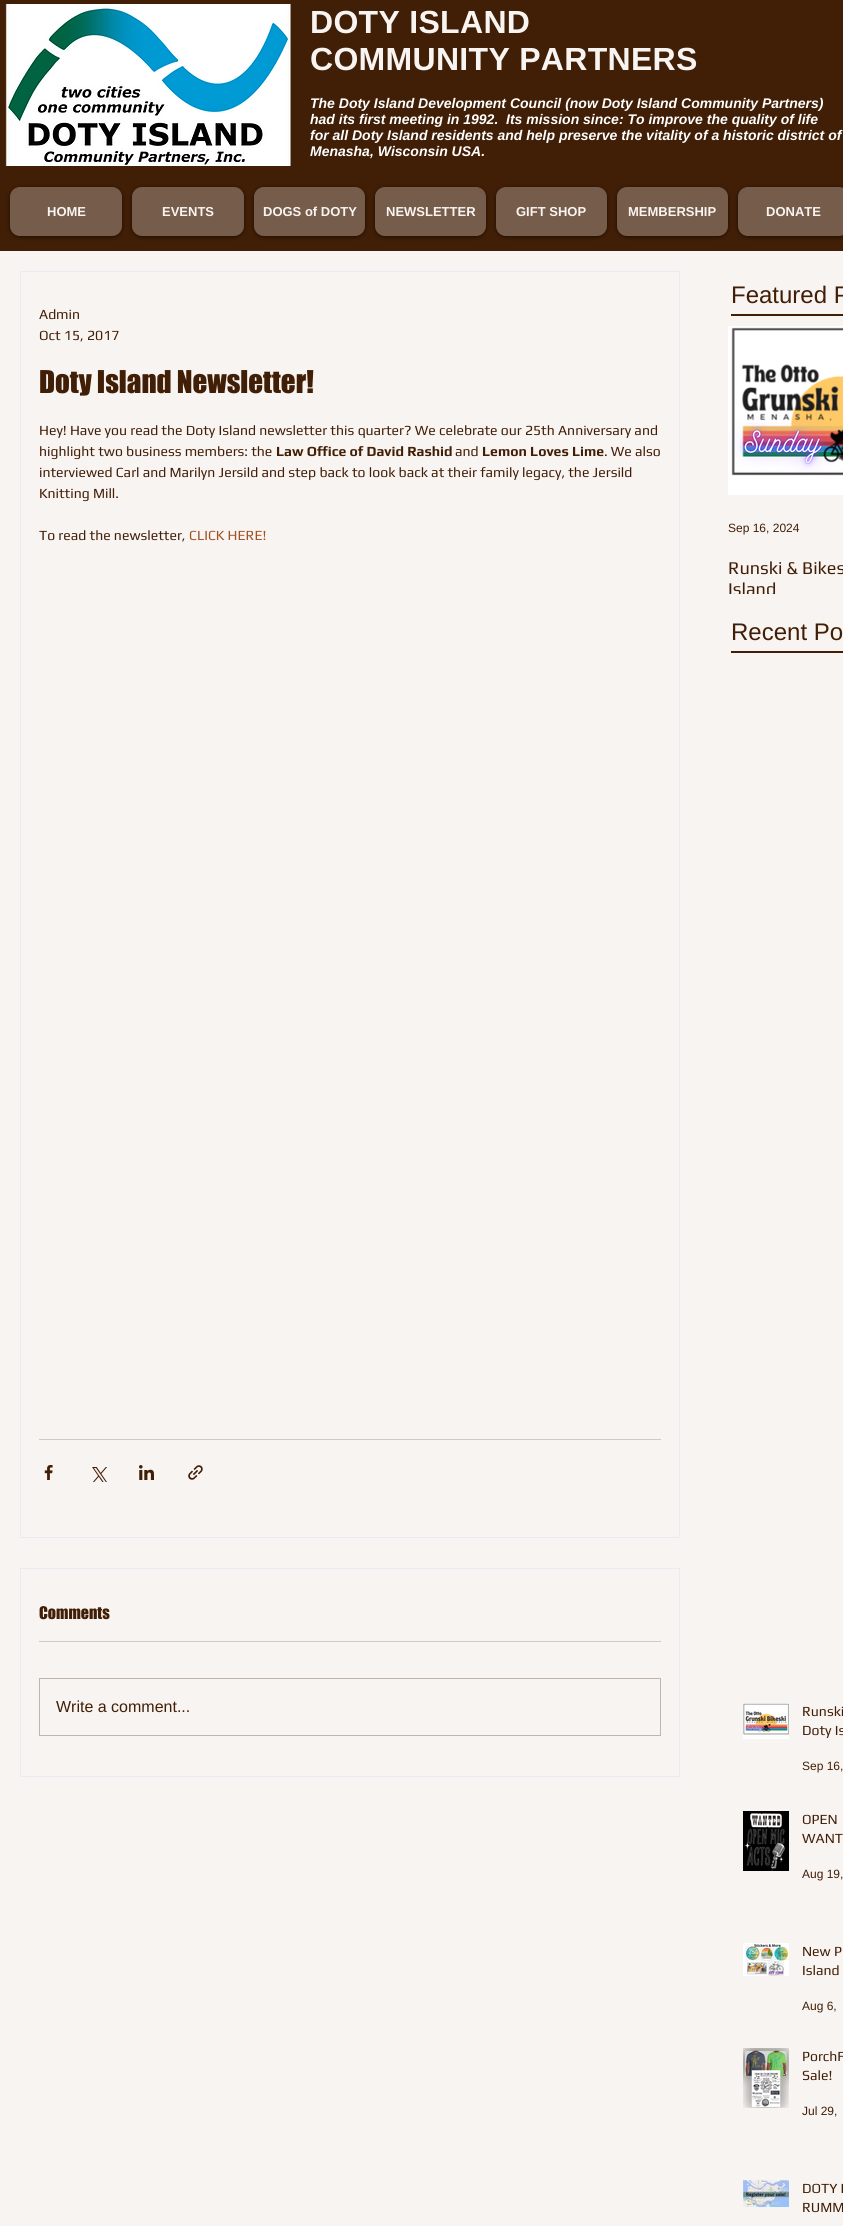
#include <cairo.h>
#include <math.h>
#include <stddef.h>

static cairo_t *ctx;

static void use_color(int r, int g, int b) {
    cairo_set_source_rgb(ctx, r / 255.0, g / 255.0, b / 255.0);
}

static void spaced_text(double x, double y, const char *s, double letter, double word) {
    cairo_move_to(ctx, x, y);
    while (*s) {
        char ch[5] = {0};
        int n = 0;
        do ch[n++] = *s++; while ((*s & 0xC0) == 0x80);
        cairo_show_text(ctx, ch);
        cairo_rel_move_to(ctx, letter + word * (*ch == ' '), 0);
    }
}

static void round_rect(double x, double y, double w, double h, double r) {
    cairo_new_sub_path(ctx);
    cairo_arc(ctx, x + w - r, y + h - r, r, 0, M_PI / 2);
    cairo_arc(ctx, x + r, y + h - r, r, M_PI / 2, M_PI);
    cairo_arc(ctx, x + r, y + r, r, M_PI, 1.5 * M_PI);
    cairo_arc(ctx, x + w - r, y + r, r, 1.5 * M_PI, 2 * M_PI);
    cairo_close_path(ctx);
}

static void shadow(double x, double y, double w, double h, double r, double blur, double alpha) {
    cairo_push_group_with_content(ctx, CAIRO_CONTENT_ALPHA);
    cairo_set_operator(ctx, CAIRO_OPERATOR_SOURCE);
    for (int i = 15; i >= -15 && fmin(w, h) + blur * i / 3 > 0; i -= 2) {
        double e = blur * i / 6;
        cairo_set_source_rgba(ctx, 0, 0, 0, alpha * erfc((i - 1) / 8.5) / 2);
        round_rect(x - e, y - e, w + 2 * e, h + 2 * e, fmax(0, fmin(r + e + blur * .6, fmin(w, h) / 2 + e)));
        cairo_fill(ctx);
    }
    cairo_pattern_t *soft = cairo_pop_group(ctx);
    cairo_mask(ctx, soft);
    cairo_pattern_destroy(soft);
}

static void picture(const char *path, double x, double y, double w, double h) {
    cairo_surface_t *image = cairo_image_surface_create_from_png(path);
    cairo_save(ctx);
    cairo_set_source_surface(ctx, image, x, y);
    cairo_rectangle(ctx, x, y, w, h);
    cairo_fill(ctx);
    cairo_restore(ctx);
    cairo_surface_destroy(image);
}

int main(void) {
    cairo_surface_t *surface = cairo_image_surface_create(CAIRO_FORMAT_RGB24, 843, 2226);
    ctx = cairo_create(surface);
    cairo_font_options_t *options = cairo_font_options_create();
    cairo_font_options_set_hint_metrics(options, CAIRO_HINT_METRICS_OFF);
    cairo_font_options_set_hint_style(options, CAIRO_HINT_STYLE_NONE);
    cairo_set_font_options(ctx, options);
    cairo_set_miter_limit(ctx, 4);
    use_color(248, 244, 241);
    cairo_paint(ctx);
    use_color(65, 30, 6);
    cairo_rectangle(ctx, 0, 0, 843, 251);
    cairo_fill(ctx);
    picture("img1.png", 5, 4, 286, 162);
    cairo_select_font_face(ctx, "Liberation Sans", CAIRO_FONT_SLANT_NORMAL, CAIRO_FONT_WEIGHT_BOLD);
    cairo_set_font_size(ctx, 32);
    use_color(248, 244, 241);
    spaced_text(310, 33, "DOTY ISLAND", 0.3, 0);
    spaced_text(310, 70, "COMMUNITY PARTNERS", 0.3, 0);
    cairo_select_font_face(ctx, "Liberation Sans", CAIRO_FONT_SLANT_ITALIC, CAIRO_FONT_WEIGHT_BOLD);
    cairo_set_font_size(ctx, 14);
    use_color(255, 255, 255);
    cairo_move_to(ctx, 310, 108);
    cairo_show_text(ctx, "The Doty Island Development Council (now Doty Island Community Partners)");
    cairo_move_to(ctx, 310, 124);
    cairo_show_text(ctx, "had its first meeting in 1992.  Its mission since: To improve the quality of life");
    cairo_move_to(ctx, 310, 140);
    cairo_show_text(ctx, "for all Doty Island residents and help preserve the vitality of a historic district of");
    cairo_move_to(ctx, 310, 156);
    cairo_show_text(ctx, "Menasha, Wisconsin USA.");
    cairo_save(ctx);
    cairo_set_fill_rule(ctx, CAIRO_FILL_RULE_EVEN_ODD);
    cairo_new_path(ctx);
    cairo_move_to(ctx, 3, 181);
    cairo_line_to(ctx, 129, 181);
    cairo_line_to(ctx, 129, 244);
    cairo_line_to(ctx, 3, 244);
    cairo_close_path(ctx);
    cairo_move_to(ctx, 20, 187);
    cairo_line_to(ctx, 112, 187);
    cairo_curve_to(ctx, 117.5, 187, 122, 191.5, 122, 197);
    cairo_line_to(ctx, 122, 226);
    cairo_curve_to(ctx, 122, 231.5, 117.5, 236, 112, 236);
    cairo_line_to(ctx, 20, 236);
    cairo_curve_to(ctx, 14.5, 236, 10, 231.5, 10, 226);
    cairo_line_to(ctx, 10, 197);
    cairo_curve_to(ctx, 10, 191.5, 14.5, 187, 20, 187);
    cairo_close_path(ctx);
    cairo_clip(ctx);
    use_color(0, 0, 0);
    shadow(10, 188, 112, 49, 10, 2, 0.6);
    cairo_restore(ctx);
    cairo_set_source_rgba(ctx, 0.973, 0.957, 0.945, 0.29);
    round_rect(10, 187, 112, 49, 10);
    cairo_fill(ctx);
    cairo_select_font_face(ctx, "Liberation Sans", CAIRO_FONT_SLANT_NORMAL, CAIRO_FONT_WEIGHT_BOLD);
    cairo_set_font_size(ctx, 13);
    use_color(248, 244, 241);
    cairo_move_to(ctx, 47, 216);
    cairo_show_text(ctx, "HOME");
    cairo_save(ctx);
    cairo_set_fill_rule(ctx, CAIRO_FILL_RULE_EVEN_ODD);
    cairo_new_path(ctx);
    cairo_move_to(ctx, 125, 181);
    cairo_line_to(ctx, 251, 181);
    cairo_line_to(ctx, 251, 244);
    cairo_line_to(ctx, 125, 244);
    cairo_close_path(ctx);
    cairo_move_to(ctx, 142, 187);
    cairo_line_to(ctx, 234, 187);
    cairo_curve_to(ctx, 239.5, 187, 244, 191.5, 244, 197);
    cairo_line_to(ctx, 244, 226);
    cairo_curve_to(ctx, 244, 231.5, 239.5, 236, 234, 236);
    cairo_line_to(ctx, 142, 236);
    cairo_curve_to(ctx, 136.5, 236, 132, 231.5, 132, 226);
    cairo_line_to(ctx, 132, 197);
    cairo_curve_to(ctx, 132, 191.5, 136.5, 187, 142, 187);
    cairo_close_path(ctx);
    cairo_clip(ctx);
    use_color(0, 0, 0);
    shadow(132, 188, 112, 49, 10, 2, 0.6);
    cairo_restore(ctx);
    cairo_set_source_rgba(ctx, 0.973, 0.957, 0.945, 0.29);
    round_rect(132, 187, 112, 49, 10);
    cairo_fill(ctx);
    use_color(248, 244, 241);
    cairo_move_to(ctx, 162, 216);
    cairo_show_text(ctx, "EVENTS");
    cairo_save(ctx);
    cairo_set_fill_rule(ctx, CAIRO_FILL_RULE_EVEN_ODD);
    cairo_new_path(ctx);
    cairo_move_to(ctx, 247, 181);
    cairo_line_to(ctx, 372, 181);
    cairo_line_to(ctx, 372, 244);
    cairo_line_to(ctx, 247, 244);
    cairo_close_path(ctx);
    cairo_move_to(ctx, 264, 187);
    cairo_line_to(ctx, 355, 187);
    cairo_curve_to(ctx, 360.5, 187, 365, 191.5, 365, 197);
    cairo_line_to(ctx, 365, 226);
    cairo_curve_to(ctx, 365, 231.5, 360.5, 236, 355, 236);
    cairo_line_to(ctx, 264, 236);
    cairo_curve_to(ctx, 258.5, 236, 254, 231.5, 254, 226);
    cairo_line_to(ctx, 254, 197);
    cairo_curve_to(ctx, 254, 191.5, 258.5, 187, 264, 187);
    cairo_close_path(ctx);
    cairo_clip(ctx);
    use_color(0, 0, 0);
    shadow(254, 188, 111, 49, 10, 2, 0.6);
    cairo_restore(ctx);
    cairo_set_source_rgba(ctx, 0.973, 0.957, 0.945, 0.29);
    round_rect(254, 187, 111, 49, 10);
    cairo_fill(ctx);
    use_color(248, 244, 241);
    cairo_move_to(ctx, 263, 216);
    cairo_show_text(ctx, "DOGS of DOTY");
    cairo_save(ctx);
    cairo_set_fill_rule(ctx, CAIRO_FILL_RULE_EVEN_ODD);
    cairo_new_path(ctx);
    cairo_move_to(ctx, 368, 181);
    cairo_line_to(ctx, 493, 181);
    cairo_line_to(ctx, 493, 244);
    cairo_line_to(ctx, 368, 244);
    cairo_close_path(ctx);
    cairo_move_to(ctx, 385, 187);
    cairo_line_to(ctx, 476, 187);
    cairo_curve_to(ctx, 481.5, 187, 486, 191.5, 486, 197);
    cairo_line_to(ctx, 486, 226);
    cairo_curve_to(ctx, 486, 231.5, 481.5, 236, 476, 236);
    cairo_line_to(ctx, 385, 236);
    cairo_curve_to(ctx, 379.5, 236, 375, 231.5, 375, 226);
    cairo_line_to(ctx, 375, 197);
    cairo_curve_to(ctx, 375, 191.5, 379.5, 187, 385, 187);
    cairo_close_path(ctx);
    cairo_clip(ctx);
    use_color(0, 0, 0);
    shadow(375, 188, 111, 49, 10, 2, 0.6);
    cairo_restore(ctx);
    cairo_set_source_rgba(ctx, 0.973, 0.957, 0.945, 0.29);
    round_rect(375, 187, 111, 49, 10);
    cairo_fill(ctx);
    use_color(248, 244, 241);
    cairo_move_to(ctx, 386, 216);
    cairo_show_text(ctx, "NEWSLETTER");
    cairo_save(ctx);
    cairo_set_fill_rule(ctx, CAIRO_FILL_RULE_EVEN_ODD);
    cairo_new_path(ctx);
    cairo_move_to(ctx, 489, 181);
    cairo_line_to(ctx, 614, 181);
    cairo_line_to(ctx, 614, 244);
    cairo_line_to(ctx, 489, 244);
    cairo_close_path(ctx);
    cairo_move_to(ctx, 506, 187);
    cairo_line_to(ctx, 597, 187);
    cairo_curve_to(ctx, 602.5, 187, 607, 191.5, 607, 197);
    cairo_line_to(ctx, 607, 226);
    cairo_curve_to(ctx, 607, 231.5, 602.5, 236, 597, 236);
    cairo_line_to(ctx, 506, 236);
    cairo_curve_to(ctx, 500.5, 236, 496, 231.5, 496, 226);
    cairo_line_to(ctx, 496, 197);
    cairo_curve_to(ctx, 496, 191.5, 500.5, 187, 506, 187);
    cairo_close_path(ctx);
    cairo_clip(ctx);
    use_color(0, 0, 0);
    shadow(496, 188, 111, 49, 10, 2, 0.6);
    cairo_restore(ctx);
    cairo_set_source_rgba(ctx, 0.973, 0.957, 0.945, 0.29);
    round_rect(496, 187, 111, 49, 10);
    cairo_fill(ctx);
    use_color(248, 244, 241);
    cairo_move_to(ctx, 516, 216);
    cairo_show_text(ctx, "GIFT SHOP");
    cairo_save(ctx);
    cairo_set_fill_rule(ctx, CAIRO_FILL_RULE_EVEN_ODD);
    cairo_new_path(ctx);
    cairo_move_to(ctx, 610, 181);
    cairo_line_to(ctx, 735, 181);
    cairo_line_to(ctx, 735, 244);
    cairo_line_to(ctx, 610, 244);
    cairo_close_path(ctx);
    cairo_move_to(ctx, 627, 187);
    cairo_line_to(ctx, 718, 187);
    cairo_curve_to(ctx, 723.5, 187, 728, 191.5, 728, 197);
    cairo_line_to(ctx, 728, 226);
    cairo_curve_to(ctx, 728, 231.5, 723.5, 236, 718, 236);
    cairo_line_to(ctx, 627, 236);
    cairo_curve_to(ctx, 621.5, 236, 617, 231.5, 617, 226);
    cairo_line_to(ctx, 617, 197);
    cairo_curve_to(ctx, 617, 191.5, 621.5, 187, 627, 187);
    cairo_close_path(ctx);
    cairo_clip(ctx);
    use_color(0, 0, 0);
    shadow(617, 188, 111, 49, 10, 2, 0.6);
    cairo_restore(ctx);
    cairo_set_source_rgba(ctx, 0.973, 0.957, 0.945, 0.29);
    round_rect(617, 187, 111, 49, 10);
    cairo_fill(ctx);
    use_color(248, 244, 241);
    cairo_move_to(ctx, 628, 216);
    cairo_show_text(ctx, "MEMBERSHIP");
    cairo_save(ctx);
    cairo_set_fill_rule(ctx, CAIRO_FILL_RULE_EVEN_ODD);
    cairo_new_path(ctx);
    cairo_move_to(ctx, 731, 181);
    cairo_line_to(ctx, 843, 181);
    cairo_line_to(ctx, 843, 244);
    cairo_line_to(ctx, 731, 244);
    cairo_close_path(ctx);
    cairo_move_to(ctx, 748, 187);
    cairo_line_to(ctx, 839, 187);
    cairo_curve_to(ctx, 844.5, 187, 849, 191.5, 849, 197);
    cairo_line_to(ctx, 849, 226);
    cairo_curve_to(ctx, 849, 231.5, 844.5, 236, 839, 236);
    cairo_line_to(ctx, 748, 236);
    cairo_curve_to(ctx, 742.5, 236, 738, 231.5, 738, 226);
    cairo_line_to(ctx, 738, 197);
    cairo_curve_to(ctx, 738, 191.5, 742.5, 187, 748, 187);
    cairo_close_path(ctx);
    cairo_clip(ctx);
    use_color(0, 0, 0);
    shadow(738, 188, 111, 49, 10, 2, 0.6);
    cairo_restore(ctx);
    cairo_set_source_rgba(ctx, 0.973, 0.957, 0.945, 0.29);
    round_rect(738, 187, 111, 49, 10);
    cairo_fill(ctx);
    use_color(248, 244, 241);
    cairo_move_to(ctx, 766, 216);
    cairo_show_text(ctx, "DONATE");
    cairo_select_font_face(ctx, "Liberation Sans", CAIRO_FONT_SLANT_NORMAL, CAIRO_FONT_WEIGHT_NORMAL);
    cairo_set_font_size(ctx, 24);
    use_color(65, 30, 6);
    cairo_move_to(ctx, 731, 303);
    cairo_show_text(ctx, "Featured P");
    cairo_rectangle(ctx, 20.5, 271.5, 659, 1266);
    use_color(243, 230, 243);
    cairo_set_line_width(ctx, 1);
    cairo_stroke(ctx);
    cairo_select_font_face(ctx, "Play", CAIRO_FONT_SLANT_NORMAL, CAIRO_FONT_WEIGHT_NORMAL);
    cairo_set_font_size(ctx, 14);
    use_color(65, 30, 6);
    cairo_move_to(ctx, 39, 319);
    cairo_show_text(ctx, "Admin");
    cairo_move_to(ctx, 39, 340);
    cairo_show_text(ctx, "Oct 15, 2017");
    cairo_select_font_face(ctx, "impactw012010", CAIRO_FONT_SLANT_NORMAL, CAIRO_FONT_WEIGHT_NORMAL);
    cairo_set_font_size(ctx, 29);
    cairo_move_to(ctx, 39, 393);
    cairo_show_text(ctx, "Doty Island Newsletter!");
    cairo_select_font_face(ctx, "Play", CAIRO_FONT_SLANT_NORMAL, CAIRO_FONT_WEIGHT_NORMAL);
    cairo_set_font_size(ctx, 14);
    cairo_move_to(ctx, 39, 435);
    cairo_show_text(ctx, "Hey! Have you read the Doty Island newsletter this quarter? We celebrate our 25th Anniversary and");
    cairo_move_to(ctx, 39, 456);
    cairo_show_text(ctx, "highlight two business members: the");
    cairo_select_font_face(ctx, "Play", CAIRO_FONT_SLANT_NORMAL, CAIRO_FONT_WEIGHT_BOLD);
    cairo_move_to(ctx, 276, 456);
    cairo_show_text(ctx, "Law Office of David Rashid");
    cairo_select_font_face(ctx, "Play", CAIRO_FONT_SLANT_NORMAL, CAIRO_FONT_WEIGHT_NORMAL);
    cairo_move_to(ctx, 455, 456);
    cairo_show_text(ctx, "and");
    cairo_select_font_face(ctx, "Play", CAIRO_FONT_SLANT_NORMAL, CAIRO_FONT_WEIGHT_BOLD);
    cairo_move_to(ctx, 482, 456);
    cairo_show_text(ctx, "Lemon Loves Lime");
    cairo_select_font_face(ctx, "Play", CAIRO_FONT_SLANT_NORMAL, CAIRO_FONT_WEIGHT_NORMAL);
    cairo_move_to(ctx, 604, 456);
    cairo_show_text(ctx, ". We also");
    cairo_move_to(ctx, 39, 477);
    cairo_show_text(ctx, "interviewed Carl and Marilyn Jersild and step back to look back at their family legacy, the Jersild");
    cairo_move_to(ctx, 39, 498);
    cairo_show_text(ctx, "Knitting Mill.");
    cairo_move_to(ctx, 39, 540);
    cairo_show_text(ctx, "To read the newsletter,");
    use_color(160, 82, 34);
    cairo_move_to(ctx, 189, 540);
    cairo_show_text(ctx, "CLICK HERE!");
    use_color(211, 201, 194);
    cairo_rectangle(ctx, 39, 1439, 622, 1);
    cairo_fill(ctx);
    picture("img2.png", 44, 1465, 9, 15);
    picture("img3.png", 92, 1467, 15, 15);
    picture("img4.png", 139, 1465, 15, 15);
    picture("img5.png", 188, 1465, 15, 15);
    cairo_rectangle(ctx, 20.5, 1568.5, 659, 208);
    use_color(243, 230, 243);
    cairo_stroke(ctx);
    cairo_select_font_face(ctx, "impactw012010", CAIRO_FONT_SLANT_NORMAL, CAIRO_FONT_WEIGHT_NORMAL);
    cairo_set_font_size(ctx, 16);
    use_color(65, 30, 6);
    cairo_move_to(ctx, 39, 1619);
    cairo_show_text(ctx, "Comments");
    use_color(211, 201, 194);
    cairo_rectangle(ctx, 39, 1641, 622, 1);
    cairo_fill(ctx);
    cairo_rectangle(ctx, 39.5, 1678.5, 621, 57);
    use_color(193, 180, 171);
    cairo_stroke(ctx);
    cairo_select_font_face(ctx, "Liberation Sans", CAIRO_FONT_SLANT_NORMAL, CAIRO_FONT_WEIGHT_NORMAL);
    use_color(65, 30, 6);
    cairo_move_to(ctx, 56, 1712);
    cairo_show_text(ctx, "Write a comment...");
    cairo_rectangle(ctx, 731, 314, 112, 2);
    cairo_fill(ctx);
    picture("img6.png", 728, 326, 115, 169);
    cairo_set_font_size(ctx, 12);
    cairo_move_to(ctx, 728, 532);
    cairo_show_text(ctx, "Sep 16, 2024");
    cairo_select_font_face(ctx, "Play", CAIRO_FONT_SLANT_NORMAL, CAIRO_FONT_WEIGHT_NORMAL);
    cairo_set_font_size(ctx, 18);
    cairo_move_to(ctx, 728, 574);
    cairo_show_text(ctx, "Runski & Bikes");
    cairo_save(ctx);
    cairo_rectangle(ctx, 728, 557, 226, 37);
    cairo_clip(ctx);
    cairo_move_to(ctx, 728, 595);
    cairo_show_text(ctx, "Island");
    cairo_restore(ctx);
    cairo_select_font_face(ctx, "Liberation Sans", CAIRO_FONT_SLANT_NORMAL, CAIRO_FONT_WEIGHT_NORMAL);
    cairo_set_font_size(ctx, 24);
    cairo_move_to(ctx, 731, 640);
    cairo_show_text(ctx, "Recent Po");
    cairo_rectangle(ctx, 731, 651, 112, 2);
    cairo_fill(ctx);
    picture("img7.png", 743, 1703, 46, 36);
    cairo_select_font_face(ctx, "Play", CAIRO_FONT_SLANT_NORMAL, CAIRO_FONT_WEIGHT_NORMAL);
    cairo_set_font_size(ctx, 14);
    cairo_move_to(ctx, 802, 1716);
    cairo_show_text(ctx, "Runski");
    cairo_move_to(ctx, 802, 1735);
    cairo_show_text(ctx, "Doty Is");
    cairo_select_font_face(ctx, "Liberation Sans", CAIRO_FONT_SLANT_NORMAL, CAIRO_FONT_WEIGHT_NORMAL);
    cairo_set_font_size(ctx, 12);
    cairo_move_to(ctx, 802, 1770);
    cairo_show_text(ctx, "Sep 16,");
    picture("img8.png", 743, 1811, 46, 60);
    cairo_select_font_face(ctx, "Play", CAIRO_FONT_SLANT_NORMAL, CAIRO_FONT_WEIGHT_NORMAL);
    cairo_set_font_size(ctx, 14);
    cairo_move_to(ctx, 802, 1824);
    cairo_show_text(ctx, "OPEN");
    cairo_move_to(ctx, 802, 1843);
    cairo_show_text(ctx, "WANT");
    cairo_select_font_face(ctx, "Liberation Sans", CAIRO_FONT_SLANT_NORMAL, CAIRO_FONT_WEIGHT_NORMAL);
    cairo_set_font_size(ctx, 12);
    cairo_move_to(ctx, 802, 1878);
    cairo_show_text(ctx, "Aug 19,");
    picture("img9.png", 743, 1943, 46, 33);
    cairo_select_font_face(ctx, "Play", CAIRO_FONT_SLANT_NORMAL, CAIRO_FONT_WEIGHT_NORMAL);
    cairo_set_font_size(ctx, 14);
    cairo_move_to(ctx, 802, 1956);
    cairo_show_text(ctx, "New P");
    cairo_move_to(ctx, 802, 1975);
    cairo_show_text(ctx, "Island");
    cairo_select_font_face(ctx, "Liberation Sans", CAIRO_FONT_SLANT_NORMAL, CAIRO_FONT_WEIGHT_NORMAL);
    cairo_set_font_size(ctx, 12);
    cairo_move_to(ctx, 802, 2010);
    cairo_show_text(ctx, "Aug 6,");
    picture("img10.png", 743, 2048, 46, 60);
    picture("img11.png", 744, 2050, 43, 58);
    cairo_select_font_face(ctx, "Play", CAIRO_FONT_SLANT_NORMAL, CAIRO_FONT_WEIGHT_NORMAL);
    cairo_set_font_size(ctx, 14);
    cairo_move_to(ctx, 802, 2061);
    cairo_show_text(ctx, "PorchF");
    cairo_move_to(ctx, 802, 2080);
    cairo_show_text(ctx, "Sale!");
    cairo_select_font_face(ctx, "Liberation Sans", CAIRO_FONT_SLANT_NORMAL, CAIRO_FONT_WEIGHT_NORMAL);
    cairo_set_font_size(ctx, 12);
    cairo_move_to(ctx, 802, 2115);
    cairo_show_text(ctx, "Jul 29,");
    picture("img12.png", 743, 2180, 46, 27);
    cairo_select_font_face(ctx, "Play", CAIRO_FONT_SLANT_NORMAL, CAIRO_FONT_WEIGHT_NORMAL);
    cairo_set_font_size(ctx, 14);
    cairo_move_to(ctx, 802, 2193);
    cairo_show_text(ctx, "DOTY I");
    cairo_move_to(ctx, 802, 2212);
    cairo_show_text(ctx, "RUMM");
    cairo_surface_write_to_png(surface, "result.png");
    cairo_font_options_destroy(options);
    cairo_destroy(ctx);
    cairo_surface_destroy(surface);
    return 0;
}
